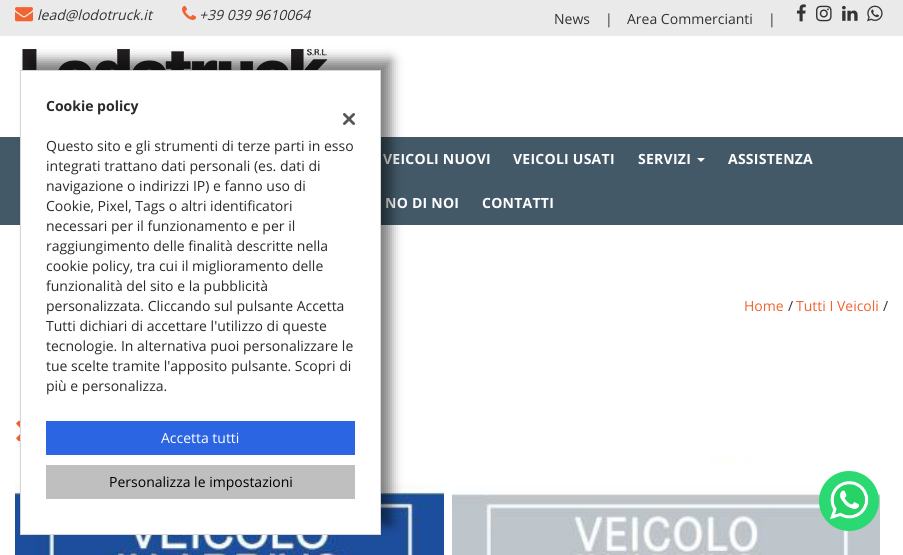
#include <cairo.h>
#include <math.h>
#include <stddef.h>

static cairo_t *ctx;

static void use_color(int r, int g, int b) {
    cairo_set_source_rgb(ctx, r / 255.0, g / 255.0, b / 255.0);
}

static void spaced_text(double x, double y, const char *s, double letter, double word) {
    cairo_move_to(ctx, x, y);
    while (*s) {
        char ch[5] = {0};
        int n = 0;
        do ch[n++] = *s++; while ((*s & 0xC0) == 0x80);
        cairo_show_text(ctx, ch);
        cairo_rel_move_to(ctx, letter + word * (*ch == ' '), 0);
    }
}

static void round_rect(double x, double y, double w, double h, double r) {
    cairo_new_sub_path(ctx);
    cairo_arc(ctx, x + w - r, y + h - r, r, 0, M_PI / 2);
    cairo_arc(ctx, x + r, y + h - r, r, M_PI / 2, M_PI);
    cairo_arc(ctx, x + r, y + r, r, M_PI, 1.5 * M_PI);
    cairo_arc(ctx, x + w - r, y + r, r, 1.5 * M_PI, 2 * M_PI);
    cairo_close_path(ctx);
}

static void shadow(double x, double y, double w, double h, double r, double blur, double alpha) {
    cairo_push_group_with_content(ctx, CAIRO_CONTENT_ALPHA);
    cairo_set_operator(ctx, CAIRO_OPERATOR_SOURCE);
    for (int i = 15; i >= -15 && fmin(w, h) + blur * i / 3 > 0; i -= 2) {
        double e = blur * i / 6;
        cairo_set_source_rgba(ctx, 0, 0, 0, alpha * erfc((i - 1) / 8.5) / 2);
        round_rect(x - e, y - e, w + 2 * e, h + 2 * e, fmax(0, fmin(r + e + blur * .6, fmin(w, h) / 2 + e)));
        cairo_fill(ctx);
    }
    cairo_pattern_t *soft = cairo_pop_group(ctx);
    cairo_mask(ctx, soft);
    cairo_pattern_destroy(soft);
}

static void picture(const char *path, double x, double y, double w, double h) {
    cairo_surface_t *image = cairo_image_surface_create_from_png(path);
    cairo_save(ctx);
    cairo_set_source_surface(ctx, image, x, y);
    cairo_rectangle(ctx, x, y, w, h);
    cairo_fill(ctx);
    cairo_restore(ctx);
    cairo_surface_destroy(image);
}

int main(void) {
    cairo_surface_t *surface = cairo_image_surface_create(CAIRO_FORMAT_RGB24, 903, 555);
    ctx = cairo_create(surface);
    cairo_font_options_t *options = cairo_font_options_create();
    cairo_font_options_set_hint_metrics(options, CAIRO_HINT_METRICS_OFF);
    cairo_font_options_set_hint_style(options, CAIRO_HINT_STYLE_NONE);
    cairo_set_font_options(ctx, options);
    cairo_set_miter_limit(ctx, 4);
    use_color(255, 255, 255);
    cairo_paint(ctx);
    use_color(234, 234, 234);
    cairo_rectangle(ctx, 0, 0, 903, 36);
    cairo_fill(ctx);
    picture("img1.png", 15, 7, 18, 15);
    cairo_select_font_face(ctx, "Open Sans", CAIRO_FONT_SLANT_ITALIC, CAIRO_FONT_WEIGHT_NORMAL);
    cairo_set_font_size(ctx, 14);
    use_color(51, 51, 51);
    cairo_move_to(ctx, 37, 20);
    cairo_show_text(ctx, "lead@lodotruck.it");
    picture("img2.png", 182, 5, 15, 15);
    cairo_move_to(ctx, 199, 20);
    cairo_show_text(ctx, "+39 039 9610064");
    cairo_select_font_face(ctx, "Open Sans", CAIRO_FONT_SLANT_NORMAL, CAIRO_FONT_WEIGHT_NORMAL);
    cairo_move_to(ctx, 554, 24);
    cairo_show_text(ctx, "News");
    cairo_move_to(ctx, 605, 24);
    cairo_show_text(ctx, "|");
    cairo_move_to(ctx, 627, 24);
    cairo_show_text(ctx, "Area Commercianti");
    cairo_move_to(ctx, 768, 24);
    cairo_show_text(ctx, "|");
    picture("img3.png", 796, 4, 10, 18);
    picture("img4.png", 816, 5, 16, 17);
    picture("img5.png", 842, 5, 16, 16);
    picture("img6.png", 867, 5, 16, 17);
    picture("img7.png", 22, 49, 305, 21);
    use_color(67, 89, 104);
    cairo_rectangle(ctx, 0, 137, 903, 88);
    cairo_fill(ctx);
    cairo_select_font_face(ctx, "Open Sans", CAIRO_FONT_SLANT_NORMAL, CAIRO_FONT_WEIGHT_BOLD);
    use_color(255, 255, 255);
    spaced_text(383, 164, "VEICOLI NUOVI", 0.25, 0);
    spaced_text(513, 164, "VEICOLI USATI", 0.25, 0);
    spaced_text(638, 164, "SERVIZI", 0.25, 0);
    cairo_new_path(ctx);
    cairo_move_to(ctx, 697, 158);
    cairo_line_to(ctx, 705, 158);
    cairo_line_to(ctx, 701, 162);
    cairo_close_path(ctx);
    cairo_fill(ctx);
    spaced_text(728, 164, "ASSISTENZA", 0.25, 0);
    spaced_text(385, 208, "NO DI NOI", 0.25, 0);
    spaced_text(482, 208, "CONTATTI", 0.25, 0);
    cairo_select_font_face(ctx, "Open Sans", CAIRO_FONT_SLANT_NORMAL, CAIRO_FONT_WEIGHT_NORMAL);
    use_color(241, 99, 47);
    cairo_move_to(ctx, 744, 311);
    cairo_show_text(ctx, "Home");
    use_color(51, 51, 51);
    cairo_move_to(ctx, 788, 311);
    cairo_show_text(ctx, "/");
    use_color(241, 99, 47);
    cairo_move_to(ctx, 796, 311);
    cairo_show_text(ctx, "Tutti I Veicoli");
    use_color(51, 51, 51);
    cairo_move_to(ctx, 883, 311);
    cairo_show_text(ctx, "/");
    picture("img8.png", 16, 420, 4, 22);
    picture("img9.png", 15, 456, 429, 99);
    picture("img10.png", 452, 456, 428, 99);
    use_color(0, 0, 0);
    shadow(30, 60, 361, 465, 0, 6, 0.5);
    use_color(255, 255, 255);
    cairo_rectangle(ctx, 20.5, 70.5, 360, 464);
    cairo_fill_preserve(ctx);
    use_color(214, 214, 214);
    cairo_set_line_width(ctx, 1);
    cairo_stroke(ctx);
    cairo_select_font_face(ctx, "Open Sans", CAIRO_FONT_SLANT_NORMAL, CAIRO_FONT_WEIGHT_BOLD);
    use_color(43, 41, 41);
    cairo_move_to(ctx, 46, 111);
    cairo_show_text(ctx, "Cookie policy");
    cairo_select_font_face(ctx, "Open Sans", CAIRO_FONT_SLANT_NORMAL, CAIRO_FONT_WEIGHT_NORMAL);
    cairo_move_to(ctx, 46, 151);
    cairo_show_text(ctx, "Questo sito e gli strumenti di terze parti in esso");
    cairo_move_to(ctx, 46, 171);
    cairo_show_text(ctx, "integrati trattano dati personali (es. dati di");
    cairo_move_to(ctx, 46, 191);
    cairo_show_text(ctx, "navigazione o indirizzi IP) e fanno uso di");
    cairo_move_to(ctx, 46, 211);
    cairo_show_text(ctx, "Cookie, Pixel, Tags o altri identificatori");
    cairo_move_to(ctx, 46, 231);
    cairo_show_text(ctx, "necessari per il funzionamento e per il");
    cairo_move_to(ctx, 46, 251);
    cairo_show_text(ctx, "raggiungimento delle finalità descritte nella");
    cairo_move_to(ctx, 46, 271);
    cairo_show_text(ctx, "cookie policy, tra cui il miglioramento delle");
    cairo_move_to(ctx, 46, 291);
    cairo_show_text(ctx, "funzionalità del sito e la pubblicità");
    cairo_move_to(ctx, 46, 311);
    cairo_show_text(ctx, "personalizzata. Cliccando sul pulsante Accetta");
    cairo_move_to(ctx, 46, 331);
    cairo_show_text(ctx, "Tutti dichiari di accettare l'utilizzo di queste");
    cairo_move_to(ctx, 46, 351);
    cairo_show_text(ctx, "tecnologie. In alternativa puoi personalizzare le");
    cairo_move_to(ctx, 46, 371);
    cairo_show_text(ctx, "tue scelte tramite l'apposito pulsante. Scopri di");
    cairo_move_to(ctx, 46, 391);
    cairo_show_text(ctx, "più e personalizza.");
    picture("img11.png", 343, 113, 12, 12);
    use_color(44, 101, 225);
    cairo_rectangle(ctx, 46, 421, 309, 34);
    cairo_fill(ctx);
    use_color(255, 255, 255);
    cairo_move_to(ctx, 161, 443);
    cairo_show_text(ctx, "Accetta tutti");
    use_color(191, 191, 191);
    cairo_rectangle(ctx, 46, 465, 309, 34);
    cairo_fill(ctx);
    use_color(0, 0, 0);
    cairo_move_to(ctx, 109, 487);
    cairo_show_text(ctx, "Personalizza le impostazioni");
    use_color(42, 217, 113);
    cairo_new_path(ctx);
    cairo_arc(ctx, 849, 501, 30, 0, 2 * M_PI);
    cairo_fill(ctx);
    picture("img12.png", 830, 481, 39, 38);
    cairo_surface_write_to_png(surface, "result.png");
    cairo_font_options_destroy(options);
    cairo_destroy(ctx);
    cairo_surface_destroy(surface);
    return 0;
}
